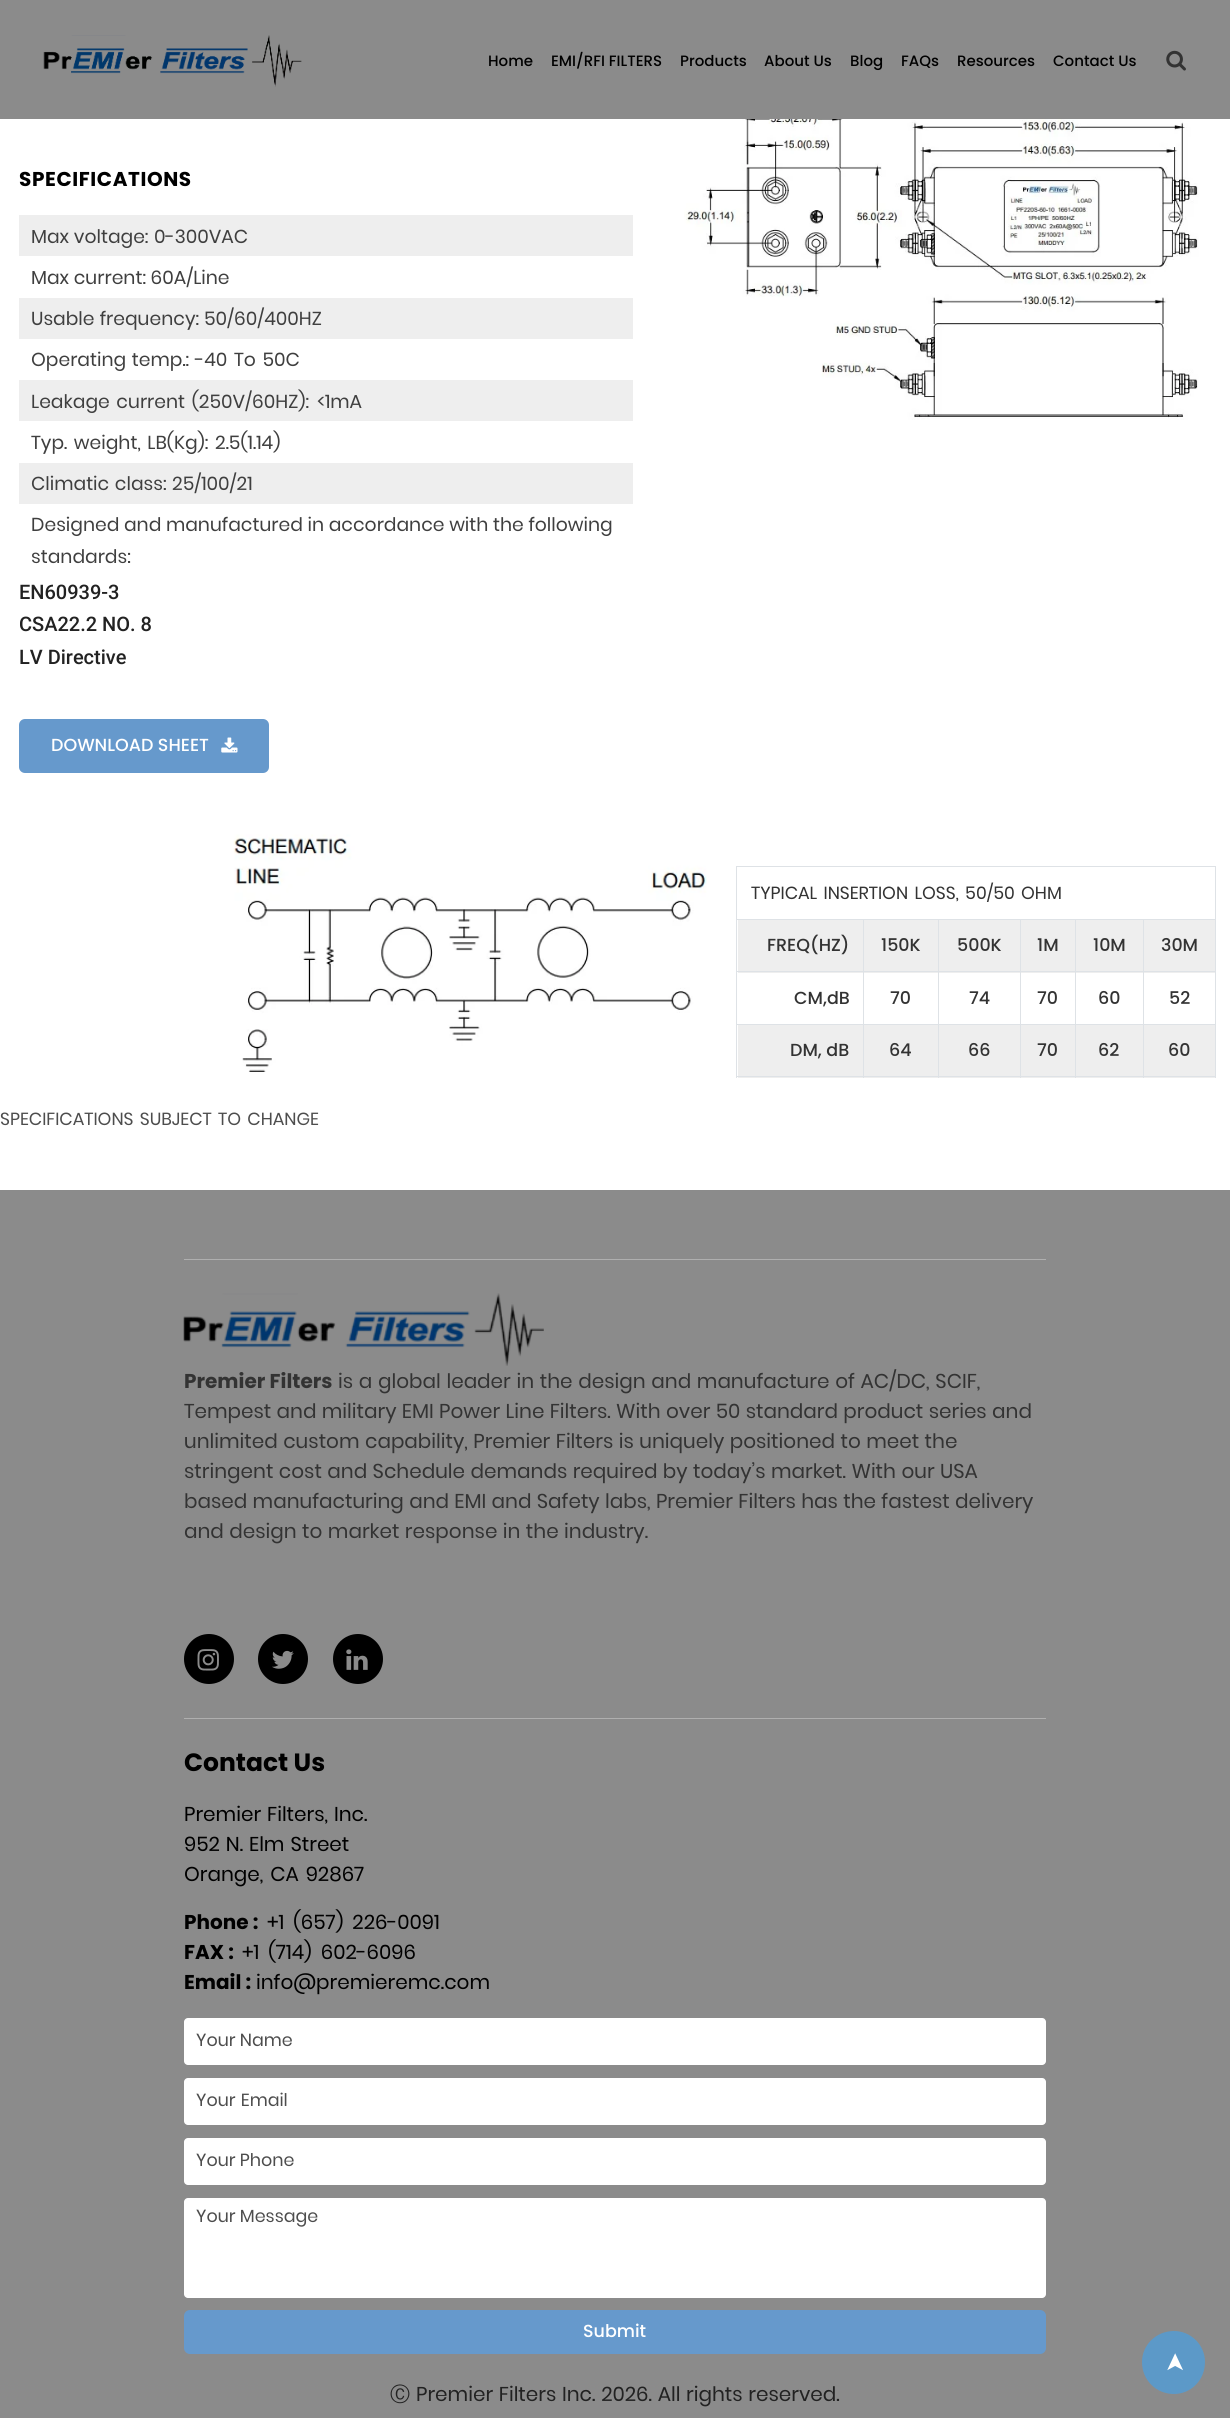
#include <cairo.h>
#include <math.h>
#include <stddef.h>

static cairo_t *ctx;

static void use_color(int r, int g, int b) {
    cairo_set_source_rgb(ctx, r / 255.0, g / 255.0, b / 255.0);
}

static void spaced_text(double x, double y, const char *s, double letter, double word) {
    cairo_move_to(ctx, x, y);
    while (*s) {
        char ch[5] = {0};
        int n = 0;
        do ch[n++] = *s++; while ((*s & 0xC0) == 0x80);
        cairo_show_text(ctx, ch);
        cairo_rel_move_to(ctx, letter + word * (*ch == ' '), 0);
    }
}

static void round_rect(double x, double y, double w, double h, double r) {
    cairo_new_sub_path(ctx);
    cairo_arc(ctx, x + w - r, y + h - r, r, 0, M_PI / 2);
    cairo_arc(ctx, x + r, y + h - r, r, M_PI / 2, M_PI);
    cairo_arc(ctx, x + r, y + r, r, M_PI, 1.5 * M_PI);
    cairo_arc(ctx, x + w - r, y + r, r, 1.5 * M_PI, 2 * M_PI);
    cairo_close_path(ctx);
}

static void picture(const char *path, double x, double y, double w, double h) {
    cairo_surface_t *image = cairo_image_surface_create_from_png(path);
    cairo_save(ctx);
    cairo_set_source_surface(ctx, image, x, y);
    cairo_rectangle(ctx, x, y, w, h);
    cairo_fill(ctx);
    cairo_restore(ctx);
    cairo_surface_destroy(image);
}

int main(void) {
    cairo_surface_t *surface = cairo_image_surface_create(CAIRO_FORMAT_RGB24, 1230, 2418);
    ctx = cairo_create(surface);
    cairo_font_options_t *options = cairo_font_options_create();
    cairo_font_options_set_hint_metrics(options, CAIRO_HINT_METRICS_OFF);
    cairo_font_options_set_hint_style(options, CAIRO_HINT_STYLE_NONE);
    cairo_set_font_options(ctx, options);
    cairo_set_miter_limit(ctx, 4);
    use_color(255, 255, 255);
    cairo_paint(ctx);
    use_color(139, 139, 139);
    cairo_rectangle(ctx, 0, 0, 1230, 119);
    cairo_fill(ctx);
    picture("img1.png", 43, 35, 259, 52);
    cairo_select_font_face(ctx, "Poppins Medium", CAIRO_FONT_SLANT_NORMAL, CAIRO_FONT_WEIGHT_NORMAL);
    cairo_set_font_size(ctx, 15);
    use_color(0, 0, 0);
    cairo_move_to(ctx, 488, 66);
    cairo_show_text(ctx, "Home");
    cairo_move_to(ctx, 551, 66);
    cairo_show_text(ctx, "EMI/RFI FILTERS");
    cairo_move_to(ctx, 680, 66);
    cairo_show_text(ctx, "Products");
    cairo_move_to(ctx, 764, 66);
    cairo_show_text(ctx, "About Us");
    cairo_move_to(ctx, 850, 66);
    cairo_show_text(ctx, "Blog");
    cairo_move_to(ctx, 901, 66);
    cairo_show_text(ctx, "FAQs");
    cairo_move_to(ctx, 957, 66);
    cairo_show_text(ctx, "Resources");
    cairo_move_to(ctx, 1053, 66);
    cairo_show_text(ctx, "Contact Us");
    picture("img2.png", 1166, 50, 20, 21);
    cairo_select_font_face(ctx, "Poppins", CAIRO_FONT_SLANT_NORMAL, CAIRO_FONT_WEIGHT_BOLD);
    cairo_set_font_size(ctx, 20);
    spaced_text(19, 186, "SPECIFICATIONS", 0.6, 0);
    use_color(238, 238, 238);
    cairo_rectangle(ctx, 19, 215, 614, 41);
    cairo_fill(ctx);
    cairo_select_font_face(ctx, "Poppins", CAIRO_FONT_SLANT_NORMAL, CAIRO_FONT_WEIGHT_NORMAL);
    cairo_set_font_size(ctx, 18.75);
    use_color(63, 63, 63);
    cairo_move_to(ctx, 31, 243);
    cairo_show_text(ctx, "Max voltage:");
    cairo_move_to(ctx, 154, 243);
    cairo_show_text(ctx, "0-300VAC");
    cairo_move_to(ctx, 31, 284);
    cairo_show_text(ctx, "Max current: 60A/Line");
    use_color(238, 238, 238);
    cairo_rectangle(ctx, 19, 298, 614, 41);
    cairo_fill(ctx);
    use_color(63, 63, 63);
    spaced_text(31, 325, "Usable frequency:", 0, 0.5);
    cairo_move_to(ctx, 204, 325);
    cairo_show_text(ctx, "50/60/400HZ");
    spaced_text(31, 366, "Operating temp.:", 0, 1);
    spaced_text(195, 366, "-40 To 50C", 0, 2);
    use_color(238, 238, 238);
    cairo_rectangle(ctx, 19, 380, 614, 41);
    cairo_fill(ctx);
    use_color(63, 63, 63);
    spaced_text(31, 408, "Leakage current (250V/60HZ):", 0, 2);
    cairo_move_to(ctx, 317, 408);
    cairo_show_text(ctx, "<1mA");
    spaced_text(31, 449, "Typ. weight, LB(Kg):", 0, 2);
    cairo_move_to(ctx, 215, 449);
    cairo_show_text(ctx, "2.5(1.14)");
    use_color(238, 238, 238);
    cairo_rectangle(ctx, 19, 463, 614, 41);
    cairo_fill(ctx);
    use_color(63, 63, 63);
    spaced_text(31, 490, "Climatic class:", 0, 1);
    cairo_move_to(ctx, 172, 490);
    cairo_show_text(ctx, "25/100/21");
    cairo_move_to(ctx, 31, 531);
    cairo_show_text(ctx, "Designed and manufactured in accordance with the following");
    cairo_move_to(ctx, 31, 563);
    cairo_show_text(ctx, "standards:");
    cairo_select_font_face(ctx, "Roboto Medium", CAIRO_FONT_SLANT_NORMAL, CAIRO_FONT_WEIGHT_NORMAL);
    cairo_set_font_size(ctx, 20);
    use_color(34, 34, 34);
    cairo_move_to(ctx, 19, 599);
    cairo_show_text(ctx, "EN60939-3");
    cairo_move_to(ctx, 19, 631);
    cairo_show_text(ctx, "CSA22.2 NO. 8");
    cairo_move_to(ctx, 19, 664);
    cairo_show_text(ctx, "LV Directive");
    use_color(102, 153, 204);
    round_rect(19, 719, 250, 54, 6);
    cairo_fill(ctx);
    cairo_select_font_face(ctx, "Poppins Medium", CAIRO_FONT_SLANT_NORMAL, CAIRO_FONT_WEIGHT_NORMAL);
    cairo_set_font_size(ctx, 17.5);
    use_color(255, 255, 255);
    cairo_move_to(ctx, 51, 751);
    cairo_show_text(ctx, "DOWNLOAD SHEET");
    picture("img3.png", 221, 737, 17, 16);
    picture("img4.png", 684, 119, 515, 301);
    picture("img5.png", 233, 834, 474, 238);
    use_color(222, 226, 230);
    cairo_rectangle(ctx, 736, 866, 480, 1);
    cairo_fill(ctx);
    cairo_rectangle(ctx, 1215, 866, 1, 212);
    cairo_fill(ctx);
    use_color(238, 238, 238);
    cairo_rectangle(ctx, 738, 1025, 477, 53);
    cairo_fill(ctx);
    use_color(222, 226, 230);
    cairo_rectangle(ctx, 736, 1076, 480, 1);
    cairo_fill(ctx);
    cairo_rectangle(ctx, 736, 866, 1, 212);
    cairo_fill(ctx);
    cairo_select_font_face(ctx, "Poppins", CAIRO_FONT_SLANT_NORMAL, CAIRO_FONT_WEIGHT_NORMAL);
    use_color(51, 51, 51);
    spaced_text(751, 899, "TYPICAL INSERTION LOSS, 50/50 OHM", 0, 2);
    use_color(238, 238, 238);
    cairo_rectangle(ctx, 738, 920, 477, 53);
    cairo_fill(ctx);
    use_color(222, 226, 230);
    cairo_rectangle(ctx, 1143, 919, 73, 1);
    cairo_fill(ctx);
    cairo_rectangle(ctx, 1143, 971, 73, 1);
    cairo_fill(ctx);
    cairo_rectangle(ctx, 1143, 1024, 73, 1);
    cairo_fill(ctx);
    cairo_rectangle(ctx, 1143, 1024, 1, 54);
    cairo_fill(ctx);
    cairo_rectangle(ctx, 1075, 1024, 69, 1);
    cairo_fill(ctx);
    cairo_rectangle(ctx, 1143, 971, 1, 54);
    cairo_fill(ctx);
    cairo_rectangle(ctx, 1075, 971, 69, 1);
    cairo_fill(ctx);
    cairo_rectangle(ctx, 1143, 919, 1, 54);
    cairo_fill(ctx);
    cairo_rectangle(ctx, 1075, 919, 69, 1);
    cairo_fill(ctx);
    cairo_rectangle(ctx, 1075, 1024, 1, 54);
    cairo_fill(ctx);
    cairo_rectangle(ctx, 1020, 1024, 56, 1);
    cairo_fill(ctx);
    cairo_rectangle(ctx, 1075, 971, 1, 54);
    cairo_fill(ctx);
    cairo_rectangle(ctx, 1020, 971, 56, 1);
    cairo_fill(ctx);
    cairo_rectangle(ctx, 1075, 919, 1, 54);
    cairo_fill(ctx);
    cairo_rectangle(ctx, 1020, 919, 56, 1);
    cairo_fill(ctx);
    cairo_rectangle(ctx, 1020, 1024, 1, 54);
    cairo_fill(ctx);
    cairo_rectangle(ctx, 938, 1024, 83, 1);
    cairo_fill(ctx);
    cairo_rectangle(ctx, 1020, 971, 1, 54);
    cairo_fill(ctx);
    cairo_rectangle(ctx, 938, 971, 83, 1);
    cairo_fill(ctx);
    cairo_rectangle(ctx, 1020, 919, 1, 54);
    cairo_fill(ctx);
    cairo_rectangle(ctx, 938, 919, 83, 1);
    cairo_fill(ctx);
    cairo_rectangle(ctx, 938, 1024, 1, 54);
    cairo_fill(ctx);
    cairo_rectangle(ctx, 863, 1024, 76, 1);
    cairo_fill(ctx);
    cairo_rectangle(ctx, 938, 971, 1, 54);
    cairo_fill(ctx);
    cairo_rectangle(ctx, 863, 971, 76, 1);
    cairo_fill(ctx);
    cairo_rectangle(ctx, 938, 919, 1, 54);
    cairo_fill(ctx);
    cairo_rectangle(ctx, 863, 919, 76, 1);
    cairo_fill(ctx);
    cairo_rectangle(ctx, 863, 1024, 1, 54);
    cairo_fill(ctx);
    cairo_rectangle(ctx, 736, 1024, 128, 1);
    cairo_fill(ctx);
    cairo_rectangle(ctx, 863, 971, 1, 54);
    cairo_fill(ctx);
    cairo_rectangle(ctx, 736, 971, 128, 1);
    cairo_fill(ctx);
    cairo_rectangle(ctx, 863, 919, 1, 54);
    cairo_fill(ctx);
    cairo_rectangle(ctx, 736, 919, 128, 1);
    cairo_fill(ctx);
    cairo_select_font_face(ctx, "Poppins Medium", CAIRO_FONT_SLANT_NORMAL, CAIRO_FONT_WEIGHT_NORMAL);
    use_color(51, 51, 51);
    cairo_move_to(ctx, 767, 951);
    cairo_show_text(ctx, "FREQ(HZ)");
    cairo_move_to(ctx, 881, 951);
    cairo_show_text(ctx, "150K");
    cairo_move_to(ctx, 957, 951);
    cairo_show_text(ctx, "500K");
    cairo_move_to(ctx, 1037, 951);
    cairo_show_text(ctx, "1M");
    cairo_move_to(ctx, 1093, 951);
    cairo_show_text(ctx, "10M");
    cairo_move_to(ctx, 1161, 951);
    cairo_show_text(ctx, "30M");
    cairo_move_to(ctx, 794, 1004);
    cairo_show_text(ctx, "CM,dB");
    cairo_move_to(ctx, 890, 1004);
    cairo_show_text(ctx, "70");
    cairo_move_to(ctx, 969, 1004);
    cairo_show_text(ctx, "74");
    cairo_move_to(ctx, 1037, 1004);
    cairo_show_text(ctx, "70");
    cairo_move_to(ctx, 1098, 1004);
    cairo_show_text(ctx, "60");
    cairo_move_to(ctx, 1169, 1004);
    cairo_show_text(ctx, "52");
    cairo_move_to(ctx, 790, 1056);
    cairo_show_text(ctx, "DM, dB");
    cairo_move_to(ctx, 889, 1056);
    cairo_show_text(ctx, "64");
    cairo_move_to(ctx, 968, 1056);
    cairo_show_text(ctx, "66");
    cairo_move_to(ctx, 1037, 1056);
    cairo_show_text(ctx, "70");
    cairo_move_to(ctx, 1098, 1056);
    cairo_show_text(ctx, "62");
    cairo_move_to(ctx, 1168, 1056);
    cairo_show_text(ctx, "60");
    cairo_select_font_face(ctx, "Poppins", CAIRO_FONT_SLANT_NORMAL, CAIRO_FONT_WEIGHT_NORMAL);
    use_color(77, 77, 77);
    spaced_text(0, 1125, "SPECIFICATIONS SUBJECT TO CHANGE", 0, 2);
    use_color(139, 139, 139);
    cairo_rectangle(ctx, 0, 1190, 1230, 1228);
    cairo_fill(ctx);
    use_color(175, 175, 175);
    cairo_rectangle(ctx, 184, 1259, 862, 1);
    cairo_fill(ctx);
    cairo_rectangle(ctx, 184, 1718, 862, 1);
    cairo_fill(ctx);
    picture("img6.png", 183, 1293, 361, 73);
    cairo_select_font_face(ctx, "Poppins", CAIRO_FONT_SLANT_NORMAL, CAIRO_FONT_WEIGHT_BOLD);
    cairo_set_font_size(ctx, 20);
    use_color(51, 51, 51);
    cairo_move_to(ctx, 184, 1388);
    cairo_show_text(ctx, "Premier Filters");
    cairo_select_font_face(ctx, "Poppins", CAIRO_FONT_SLANT_NORMAL, CAIRO_FONT_WEIGHT_NORMAL);
    spaced_text(338, 1388, "is a global leader in the design and manufacture of AC/DC, SCIF,", 0, 0.75);
    spaced_text(184, 1418, "Tempest and military EMI Power Line Filters. With over 50 standard product series and", 0, 0.4);
    spaced_text(184, 1448, "unlimited custom capability, Premier Filters is uniquely positioned to meet the", 0, 0.5);
    spaced_text(184, 1478, "stringent cost and Schedule demands required by today’s market. With our USA", 0, 0.5);
    spaced_text(184, 1508, "based manufacturing and EMI and Safety labs, Premier Filters has the fastest delivery", 0, 0.4);
    spaced_text(184, 1538, "and design to market response in the industry.", 0, 0.5);
    use_color(0, 0, 0);
    cairo_new_path(ctx);
    cairo_arc(ctx, 209, 1659, 25, 0, 2 * M_PI);
    cairo_fill(ctx);
    picture("img7.png", 197, 1649, 22, 22);
    cairo_arc(ctx, 283, 1659, 25, 0, 2 * M_PI);
    cairo_fill(ctx);
    picture("img8.png", 272, 1650, 22, 19);
    cairo_arc(ctx, 358, 1659, 25, 0, 2 * M_PI);
    cairo_fill(ctx);
    picture("img9.png", 346, 1649, 22, 21);
    cairo_select_font_face(ctx, "Poppins", CAIRO_FONT_SLANT_NORMAL, CAIRO_FONT_WEIGHT_BOLD);
    cairo_set_font_size(ctx, 25);
    cairo_move_to(ctx, 184, 1771);
    cairo_show_text(ctx, "Contact Us");
    cairo_select_font_face(ctx, "Poppins", CAIRO_FONT_SLANT_NORMAL, CAIRO_FONT_WEIGHT_NORMAL);
    cairo_set_font_size(ctx, 20);
    spaced_text(184, 1821, "Premier Filters, Inc.", 0, 1);
    spaced_text(184, 1851, "952 N. Elm Street", 0, 1);
    spaced_text(184, 1881, "Orange, CA 92867", 0, 2);
    cairo_select_font_face(ctx, "Poppins", CAIRO_FONT_SLANT_NORMAL, CAIRO_FONT_WEIGHT_BOLD);
    cairo_move_to(ctx, 184, 1929);
    cairo_show_text(ctx, "Phone :");
    cairo_select_font_face(ctx, "Poppins", CAIRO_FONT_SLANT_NORMAL, CAIRO_FONT_WEIGHT_NORMAL);
    spaced_text(267, 1929, "+1 (657) 226-0091", 0, 4);
    cairo_select_font_face(ctx, "Poppins", CAIRO_FONT_SLANT_NORMAL, CAIRO_FONT_WEIGHT_BOLD);
    cairo_move_to(ctx, 184, 1959);
    cairo_show_text(ctx, "FAX :");
    cairo_select_font_face(ctx, "Poppins", CAIRO_FONT_SLANT_NORMAL, CAIRO_FONT_WEIGHT_NORMAL);
    spaced_text(242, 1959, "+1 (714) 602-6096", 0, 4);
    cairo_select_font_face(ctx, "Poppins", CAIRO_FONT_SLANT_NORMAL, CAIRO_FONT_WEIGHT_BOLD);
    cairo_move_to(ctx, 184, 1989);
    cairo_show_text(ctx, "Email :");
    cairo_select_font_face(ctx, "Poppins", CAIRO_FONT_SLANT_NORMAL, CAIRO_FONT_WEIGHT_NORMAL);
    cairo_move_to(ctx, 256, 1989);
    cairo_show_text(ctx, "info@premieremc.com");
    use_color(255, 255, 255);
    round_rect(184, 2018, 862, 47, 4);
    cairo_fill(ctx);
    cairo_set_font_size(ctx, 17.5);
    use_color(77, 77, 77);
    cairo_move_to(ctx, 196, 2046);
    cairo_show_text(ctx, "Your Name");
    use_color(255, 255, 255);
    round_rect(184, 2078, 862, 47, 4);
    cairo_fill(ctx);
    use_color(77, 77, 77);
    spaced_text(196, 2106, "Your Email", 0, 1);
    use_color(255, 255, 255);
    round_rect(184, 2138, 862, 47, 4);
    cairo_fill(ctx);
    use_color(77, 77, 77);
    cairo_move_to(ctx, 196, 2166);
    cairo_show_text(ctx, "Your Phone");
    use_color(255, 255, 255);
    round_rect(184, 2198, 862, 100, 4);
    cairo_fill(ctx);
    use_color(77, 77, 77);
    cairo_move_to(ctx, 196, 2222);
    cairo_show_text(ctx, "Your Message");
    use_color(102, 153, 204);
    round_rect(184, 2310, 862, 44, 6);
    cairo_fill(ctx);
    cairo_select_font_face(ctx, "Poppins Medium", CAIRO_FONT_SLANT_NORMAL, CAIRO_FONT_WEIGHT_NORMAL);
    use_color(255, 255, 255);
    cairo_move_to(ctx, 583, 2337);
    cairo_show_text(ctx, "Submit");
    cairo_select_font_face(ctx, "WenQuanYi Zen Hei Medium", CAIRO_FONT_SLANT_NORMAL, CAIRO_FONT_WEIGHT_NORMAL);
    cairo_set_font_size(ctx, 20);
    use_color(34, 34, 34);
    cairo_move_to(ctx, 390, 2401);
    cairo_show_text(ctx, "Ⓒ");
    cairo_select_font_face(ctx, "Poppins", CAIRO_FONT_SLANT_NORMAL, CAIRO_FONT_WEIGHT_NORMAL);
    spaced_text(416, 2401, "Premier Filters Inc. 2026. All rights reserved.", 0, 0.75);
    use_color(92, 153, 200);
    cairo_new_path(ctx);
    cairo_move_to(ctx, 1142, 2362);
    cairo_curve_to(ctx, 1142, 2345, 1156, 2331, 1174, 2331);
    cairo_curve_to(ctx, 1191, 2331, 1205, 2345, 1205, 2362);
    cairo_curve_to(ctx, 1205, 2380, 1191, 2394, 1174, 2394);
    cairo_curve_to(ctx, 1156, 2394, 1142, 2380, 1142, 2362);
    cairo_close_path(ctx);
    cairo_fill(ctx);
    cairo_select_font_face(ctx, "DejaVu Sans", CAIRO_FONT_SLANT_NORMAL, CAIRO_FONT_WEIGHT_NORMAL);
    cairo_set_font_size(ctx, 25);
    use_color(255, 255, 255);
    cairo_save(ctx);
    cairo_translate(ctx, 1183, 2373);
    cairo_rotate(ctx, -90 * M_PI / 180);
    cairo_move_to(ctx, 0, 0);
    cairo_show_text(ctx, "➤");
    cairo_restore(ctx);
    cairo_surface_write_to_png(surface, "result.png");
    cairo_font_options_destroy(options);
    cairo_destroy(ctx);
    cairo_surface_destroy(surface);
    return 0;
}
